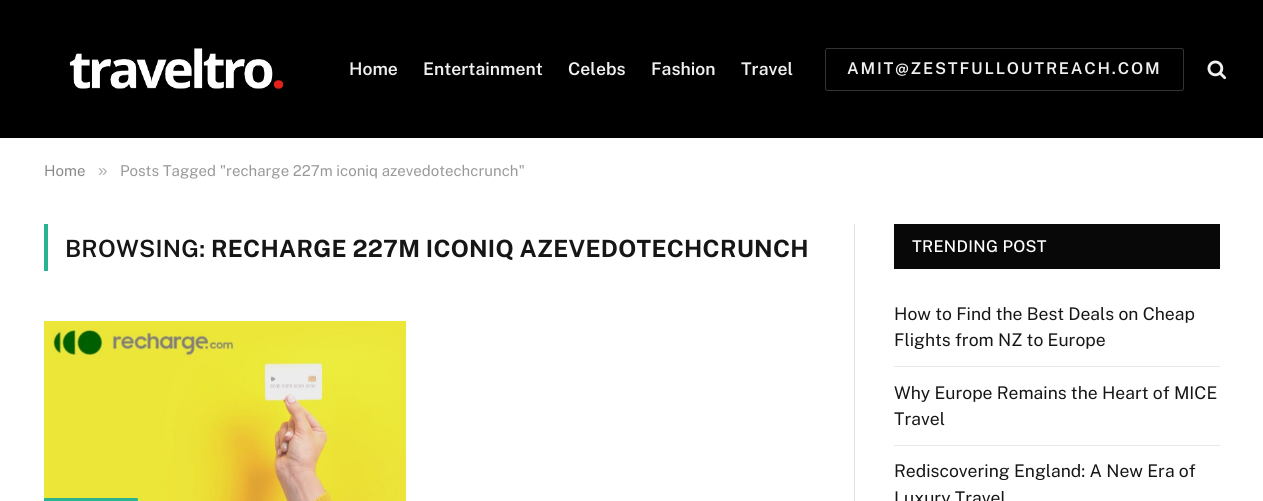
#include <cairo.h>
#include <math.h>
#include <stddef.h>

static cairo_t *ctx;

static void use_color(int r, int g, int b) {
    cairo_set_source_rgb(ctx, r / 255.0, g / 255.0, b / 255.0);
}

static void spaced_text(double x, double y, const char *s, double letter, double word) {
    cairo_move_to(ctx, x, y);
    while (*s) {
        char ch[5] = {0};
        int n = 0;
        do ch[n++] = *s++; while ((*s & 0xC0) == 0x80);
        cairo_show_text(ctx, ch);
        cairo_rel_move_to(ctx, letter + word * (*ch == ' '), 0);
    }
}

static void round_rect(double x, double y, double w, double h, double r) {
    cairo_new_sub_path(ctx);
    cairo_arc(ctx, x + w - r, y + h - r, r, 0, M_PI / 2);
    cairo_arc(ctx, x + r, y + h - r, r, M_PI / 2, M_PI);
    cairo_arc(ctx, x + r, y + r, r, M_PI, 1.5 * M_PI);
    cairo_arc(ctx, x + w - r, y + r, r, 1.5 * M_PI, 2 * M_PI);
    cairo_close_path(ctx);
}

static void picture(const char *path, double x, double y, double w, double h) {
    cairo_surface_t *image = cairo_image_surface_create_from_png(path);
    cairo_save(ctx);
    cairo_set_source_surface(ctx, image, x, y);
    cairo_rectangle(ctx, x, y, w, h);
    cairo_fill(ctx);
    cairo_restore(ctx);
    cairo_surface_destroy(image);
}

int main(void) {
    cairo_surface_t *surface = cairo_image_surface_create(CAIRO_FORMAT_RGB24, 1263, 501);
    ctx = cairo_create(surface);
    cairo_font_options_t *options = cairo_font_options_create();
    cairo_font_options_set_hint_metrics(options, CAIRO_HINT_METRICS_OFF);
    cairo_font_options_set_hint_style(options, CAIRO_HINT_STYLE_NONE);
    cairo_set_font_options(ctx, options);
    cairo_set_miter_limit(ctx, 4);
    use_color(255, 255, 255);
    cairo_paint(ctx);
    use_color(0, 0, 0);
    cairo_rectangle(ctx, 0, 0, 1263, 138);
    cairo_fill(ctx);
    picture("img1.png", 69, 48, 215, 41);
    cairo_select_font_face(ctx, "Public Sans SemiBold", CAIRO_FONT_SLANT_NORMAL, CAIRO_FONT_WEIGHT_NORMAL);
    cairo_set_font_size(ctx, 17.5);
    use_color(240, 240, 240);
    cairo_move_to(ctx, 349, 75);
    cairo_show_text(ctx, "Home");
    cairo_move_to(ctx, 423, 75);
    cairo_show_text(ctx, "Entertainment");
    cairo_move_to(ctx, 568, 75);
    cairo_show_text(ctx, "Celebs");
    cairo_move_to(ctx, 651, 75);
    cairo_show_text(ctx, "Fashion");
    cairo_move_to(ctx, 741, 75);
    cairo_show_text(ctx, "Travel");
    round_rect(825.5, 48.5, 358, 42, 2);
    use_color(51, 51, 51);
    cairo_set_line_width(ctx, 1);
    cairo_stroke(ctx);
    cairo_set_font_size(ctx, 16.25);
    use_color(240, 240, 240);
    spaced_text(847, 74, "AMIT@ZESTFULLOUTREACH.COM", 1.8, 0);
    picture("img2.png", 1207, 60, 20, 20);
    cairo_select_font_face(ctx, "Public Sans", CAIRO_FONT_SLANT_NORMAL, CAIRO_FONT_WEIGHT_NORMAL);
    cairo_set_font_size(ctx, 15);
    use_color(138, 138, 138);
    cairo_move_to(ctx, 44, 176);
    cairo_show_text(ctx, "Home");
    cairo_select_font_face(ctx, "Liberation Sans", CAIRO_FONT_SLANT_NORMAL, CAIRO_FONT_WEIGHT_NORMAL);
    cairo_set_font_size(ctx, 17);
    use_color(173, 173, 173);
    cairo_move_to(ctx, 98, 176);
    cairo_show_text(ctx, "»");
    cairo_select_font_face(ctx, "Public Sans", CAIRO_FONT_SLANT_NORMAL, CAIRO_FONT_WEIGHT_NORMAL);
    cairo_set_font_size(ctx, 15);
    use_color(153, 153, 153);
    cairo_move_to(ctx, 120, 176);
    cairo_show_text(ctx, "Posts Tagged \"recharge 227m iconiq azevedotechcrunch\"");
    use_color(42, 179, 145);
    cairo_rectangle(ctx, 44, 224, 4, 47);
    cairo_fill(ctx);
    cairo_select_font_face(ctx, "Public Sans SemiBold", CAIRO_FONT_SLANT_NORMAL, CAIRO_FONT_WEIGHT_NORMAL);
    cairo_set_font_size(ctx, 23.75);
    use_color(22, 22, 22);
    spaced_text(65, 257, "BROWSING:", 0.25, 0);
    cairo_select_font_face(ctx, "Public Sans", CAIRO_FONT_SLANT_NORMAL, CAIRO_FONT_WEIGHT_BOLD);
    spaced_text(211, 257, "RECHARGE 227M ICONIQ AZEVEDOTECHCRUNCH", 0.25, 0);
    picture("img3.png", 44, 321, 362, 180);
    use_color(42, 179, 145);
    round_rect(44, 498, 94, 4, 1);
    cairo_fill(ctx);
    use_color(226, 226, 226);
    cairo_rectangle(ctx, 854, 224, 1, 277);
    cairo_fill(ctx);
    use_color(8, 8, 8);
    cairo_rectangle(ctx, 894, 224, 326, 45);
    cairo_fill(ctx);
    cairo_select_font_face(ctx, "Public Sans Medium", CAIRO_FONT_SLANT_NORMAL, CAIRO_FONT_WEIGHT_NORMAL);
    cairo_set_font_size(ctx, 16.25);
    use_color(255, 255, 255);
    spaced_text(912, 252, "TRENDING POST", 0.3, 0);
    use_color(232, 232, 232);
    cairo_rectangle(ctx, 894, 366, 326, 1);
    cairo_fill(ctx);
    cairo_select_font_face(ctx, "Public Sans", CAIRO_FONT_SLANT_NORMAL, CAIRO_FONT_WEIGHT_NORMAL);
    cairo_set_font_size(ctx, 17.5);
    use_color(22, 22, 22);
    cairo_move_to(ctx, 894, 320);
    cairo_show_text(ctx, "How to Find the Best Deals on Cheap");
    cairo_move_to(ctx, 894, 346);
    cairo_show_text(ctx, "Flights from NZ to Europe");
    use_color(232, 232, 232);
    cairo_rectangle(ctx, 894, 445, 326, 1);
    cairo_fill(ctx);
    use_color(22, 22, 22);
    cairo_move_to(ctx, 894, 399);
    cairo_show_text(ctx, "Why Europe Remains the Heart of MICE");
    cairo_move_to(ctx, 894, 425);
    cairo_show_text(ctx, "Travel");
    cairo_move_to(ctx, 894, 477);
    cairo_show_text(ctx, "Rediscovering England: A New Era of");
    cairo_move_to(ctx, 894, 504);
    cairo_show_text(ctx, "Luxury Travel");
    cairo_surface_write_to_png(surface, "result.png");
    cairo_font_options_destroy(options);
    cairo_destroy(ctx);
    cairo_surface_destroy(surface);
    return 0;
}
